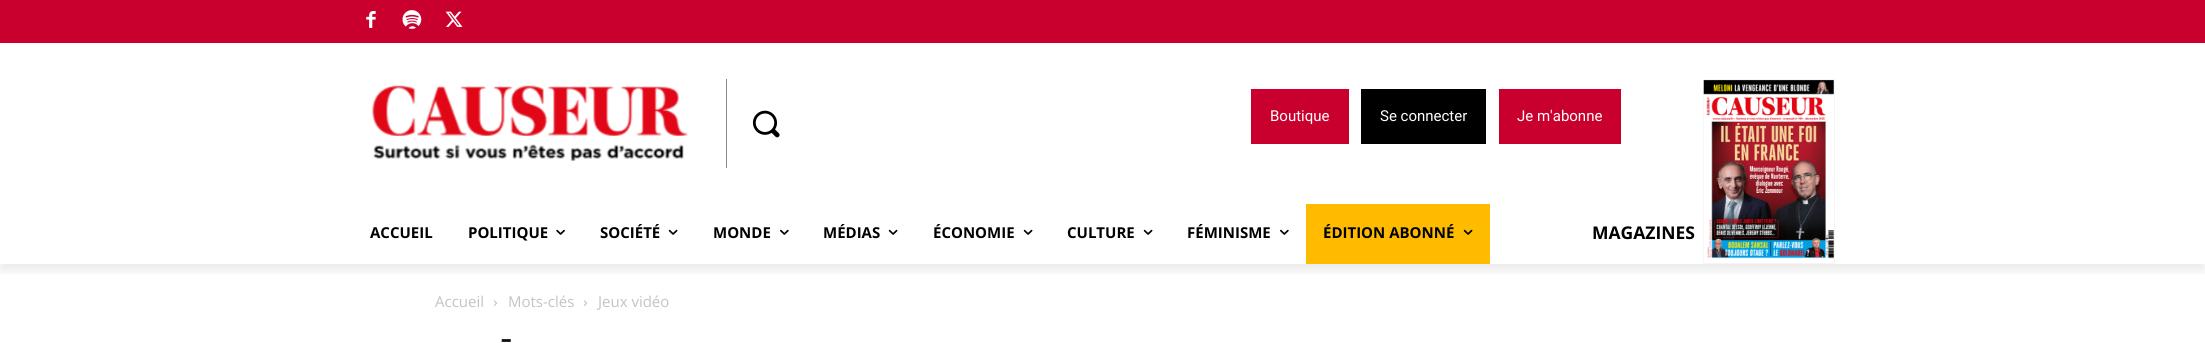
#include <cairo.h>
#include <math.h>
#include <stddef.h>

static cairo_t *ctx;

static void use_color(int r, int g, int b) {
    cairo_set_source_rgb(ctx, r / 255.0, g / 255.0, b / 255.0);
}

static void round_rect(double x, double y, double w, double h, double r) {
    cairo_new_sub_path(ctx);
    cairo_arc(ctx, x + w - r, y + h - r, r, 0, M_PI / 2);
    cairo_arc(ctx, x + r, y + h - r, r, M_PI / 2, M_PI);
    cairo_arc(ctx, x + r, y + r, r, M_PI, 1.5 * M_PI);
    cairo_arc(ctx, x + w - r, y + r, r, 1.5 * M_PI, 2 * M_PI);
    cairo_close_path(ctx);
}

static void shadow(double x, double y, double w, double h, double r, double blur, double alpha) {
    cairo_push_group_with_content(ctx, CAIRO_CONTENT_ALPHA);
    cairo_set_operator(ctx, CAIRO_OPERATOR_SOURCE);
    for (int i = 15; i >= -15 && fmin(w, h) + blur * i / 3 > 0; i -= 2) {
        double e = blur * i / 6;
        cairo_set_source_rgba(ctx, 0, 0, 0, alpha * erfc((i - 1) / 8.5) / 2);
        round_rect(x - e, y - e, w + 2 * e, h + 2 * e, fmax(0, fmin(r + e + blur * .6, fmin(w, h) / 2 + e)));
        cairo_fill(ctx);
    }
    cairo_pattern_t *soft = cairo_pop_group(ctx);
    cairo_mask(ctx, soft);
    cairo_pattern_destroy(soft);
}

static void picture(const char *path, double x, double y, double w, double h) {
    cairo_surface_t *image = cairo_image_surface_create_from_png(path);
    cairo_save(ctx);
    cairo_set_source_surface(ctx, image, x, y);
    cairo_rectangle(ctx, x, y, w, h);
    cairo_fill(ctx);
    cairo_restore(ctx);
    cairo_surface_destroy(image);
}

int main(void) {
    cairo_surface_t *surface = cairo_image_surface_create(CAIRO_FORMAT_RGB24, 2205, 343);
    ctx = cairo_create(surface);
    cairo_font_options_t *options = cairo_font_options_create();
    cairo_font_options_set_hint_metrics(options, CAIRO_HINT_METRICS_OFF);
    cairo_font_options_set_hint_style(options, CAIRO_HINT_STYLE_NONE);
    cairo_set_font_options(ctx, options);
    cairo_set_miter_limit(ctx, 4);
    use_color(255, 255, 255);
    cairo_paint(ctx);
    use_color(201, 0, 45);
    cairo_rectangle(ctx, 0, 0, 2205, 43);
    cairo_fill(ctx);
    picture("img1.png", 366, 11, 10, 17);
    picture("img2.png", 402, 10, 20, 19);
    picture("img3.png", 445, 11, 18, 16);
    use_color(136, 136, 136);
    cairo_rectangle(ctx, 726, 79, 1, 89);
    cairo_fill(ctx);
    picture("img4.png", 372, 85, 316, 76);
    use_color(201, 0, 45);
    cairo_rectangle(ctx, 1251, 89, 98, 55);
    cairo_fill(ctx);
    use_color(0, 0, 0);
    cairo_rectangle(ctx, 1361, 89, 125, 55);
    cairo_fill(ctx);
    use_color(201, 0, 45);
    cairo_rectangle(ctx, 1499, 89, 122, 55);
    cairo_fill(ctx);
    cairo_rectangle(ctx, 1703.5, 79.5, 131, 184);
    use_color(245, 245, 245);
    cairo_set_line_width(ctx, 1);
    cairo_stroke(ctx);
    picture("img10.png", 1703, 80, 131, 179);
    cairo_save(ctx);
    cairo_rectangle(ctx, 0, 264, 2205, 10);
    cairo_clip(ctx);
    use_color(0, 0, 0);
    shadow(0, 8, 2205, 263, 0, 5, 0.08);
    cairo_restore(ctx);
    picture("img5.png", 752, 110, 28, 28);
    cairo_select_font_face(ctx, "Roboto", CAIRO_FONT_SLANT_NORMAL, CAIRO_FONT_WEIGHT_NORMAL);
    cairo_set_font_size(ctx, 15);
    use_color(255, 255, 255);
    cairo_move_to(ctx, 1270, 121);
    cairo_show_text(ctx, "Boutique");
    cairo_move_to(ctx, 1380, 121);
    cairo_show_text(ctx, "Se connecter");
    cairo_move_to(ctx, 1517, 121);
    cairo_show_text(ctx, "Je m'abonne");
    cairo_select_font_face(ctx, "Open Sans", CAIRO_FONT_SLANT_NORMAL, CAIRO_FONT_WEIGHT_BOLD);
    use_color(0, 0, 0);
    cairo_move_to(ctx, 370, 238);
    cairo_show_text(ctx, "ACCUEIL");
    cairo_move_to(ctx, 468, 238);
    cairo_show_text(ctx, "POLITIQUE");
    picture("img6.png", 556, 229, 9, 6);
    cairo_move_to(ctx, 600, 238);
    cairo_show_text(ctx, "SOCIÉTÉ");
    picture("img7.png", 668, 229, 10, 6);
    cairo_move_to(ctx, 713, 238);
    cairo_show_text(ctx, "MONDE");
    picture("img8.png", 780, 229, 9, 6);
    cairo_move_to(ctx, 823, 238);
    cairo_show_text(ctx, "MÉDIAS");
    picture("img7.png", 888, 229, 10, 6);
    cairo_move_to(ctx, 933, 238);
    cairo_show_text(ctx, "ÉCONOMIE");
    picture("img7.png", 1023, 229, 10, 6);
    cairo_move_to(ctx, 1067, 238);
    cairo_show_text(ctx, "CULTURE");
    picture("img7.png", 1143, 229, 10, 6);
    cairo_move_to(ctx, 1187, 238);
    cairo_show_text(ctx, "FÉMINISME");
    picture("img8.png", 1280, 229, 9, 6);
    use_color(255, 187, 0);
    cairo_rectangle(ctx, 1306, 204, 184, 60);
    cairo_fill(ctx);
    use_color(0, 0, 0);
    cairo_move_to(ctx, 1323, 238);
    cairo_show_text(ctx, "ÉDITION ABONNÉ");
    picture("img9.png", 1463, 229, 10, 6);
    cairo_set_font_size(ctx, 17.5);
    cairo_move_to(ctx, 1592, 239);
    cairo_show_text(ctx, "MAGAZINES");
    cairo_select_font_face(ctx, "Open Sans", CAIRO_FONT_SLANT_NORMAL, CAIRO_FONT_WEIGHT_NORMAL);
    cairo_set_font_size(ctx, 15);
    use_color(195, 195, 195);
    cairo_move_to(ctx, 435, 307);
    cairo_show_text(ctx, "Accueil");
    picture("img11.png", 493, 300, 4, 6);
    cairo_move_to(ctx, 508, 307);
    cairo_show_text(ctx, "Mots-clés");
    picture("img11.png", 583, 300, 4, 6);
    cairo_move_to(ctx, 598, 307);
    cairo_show_text(ctx, "Jeux vidéo");
    cairo_select_font_face(ctx, "Roboto", CAIRO_FONT_SLANT_NORMAL, CAIRO_FONT_WEIGHT_NORMAL);
    cairo_set_font_size(ctx, 38);
    use_color(17, 17, 17);
    cairo_move_to(ctx, 501, 352);
    cairo_show_text(ctx, "-");
    cairo_surface_write_to_png(surface, "result.png");
    cairo_font_options_destroy(options);
    cairo_destroy(ctx);
    cairo_surface_destroy(surface);
    return 0;
}
